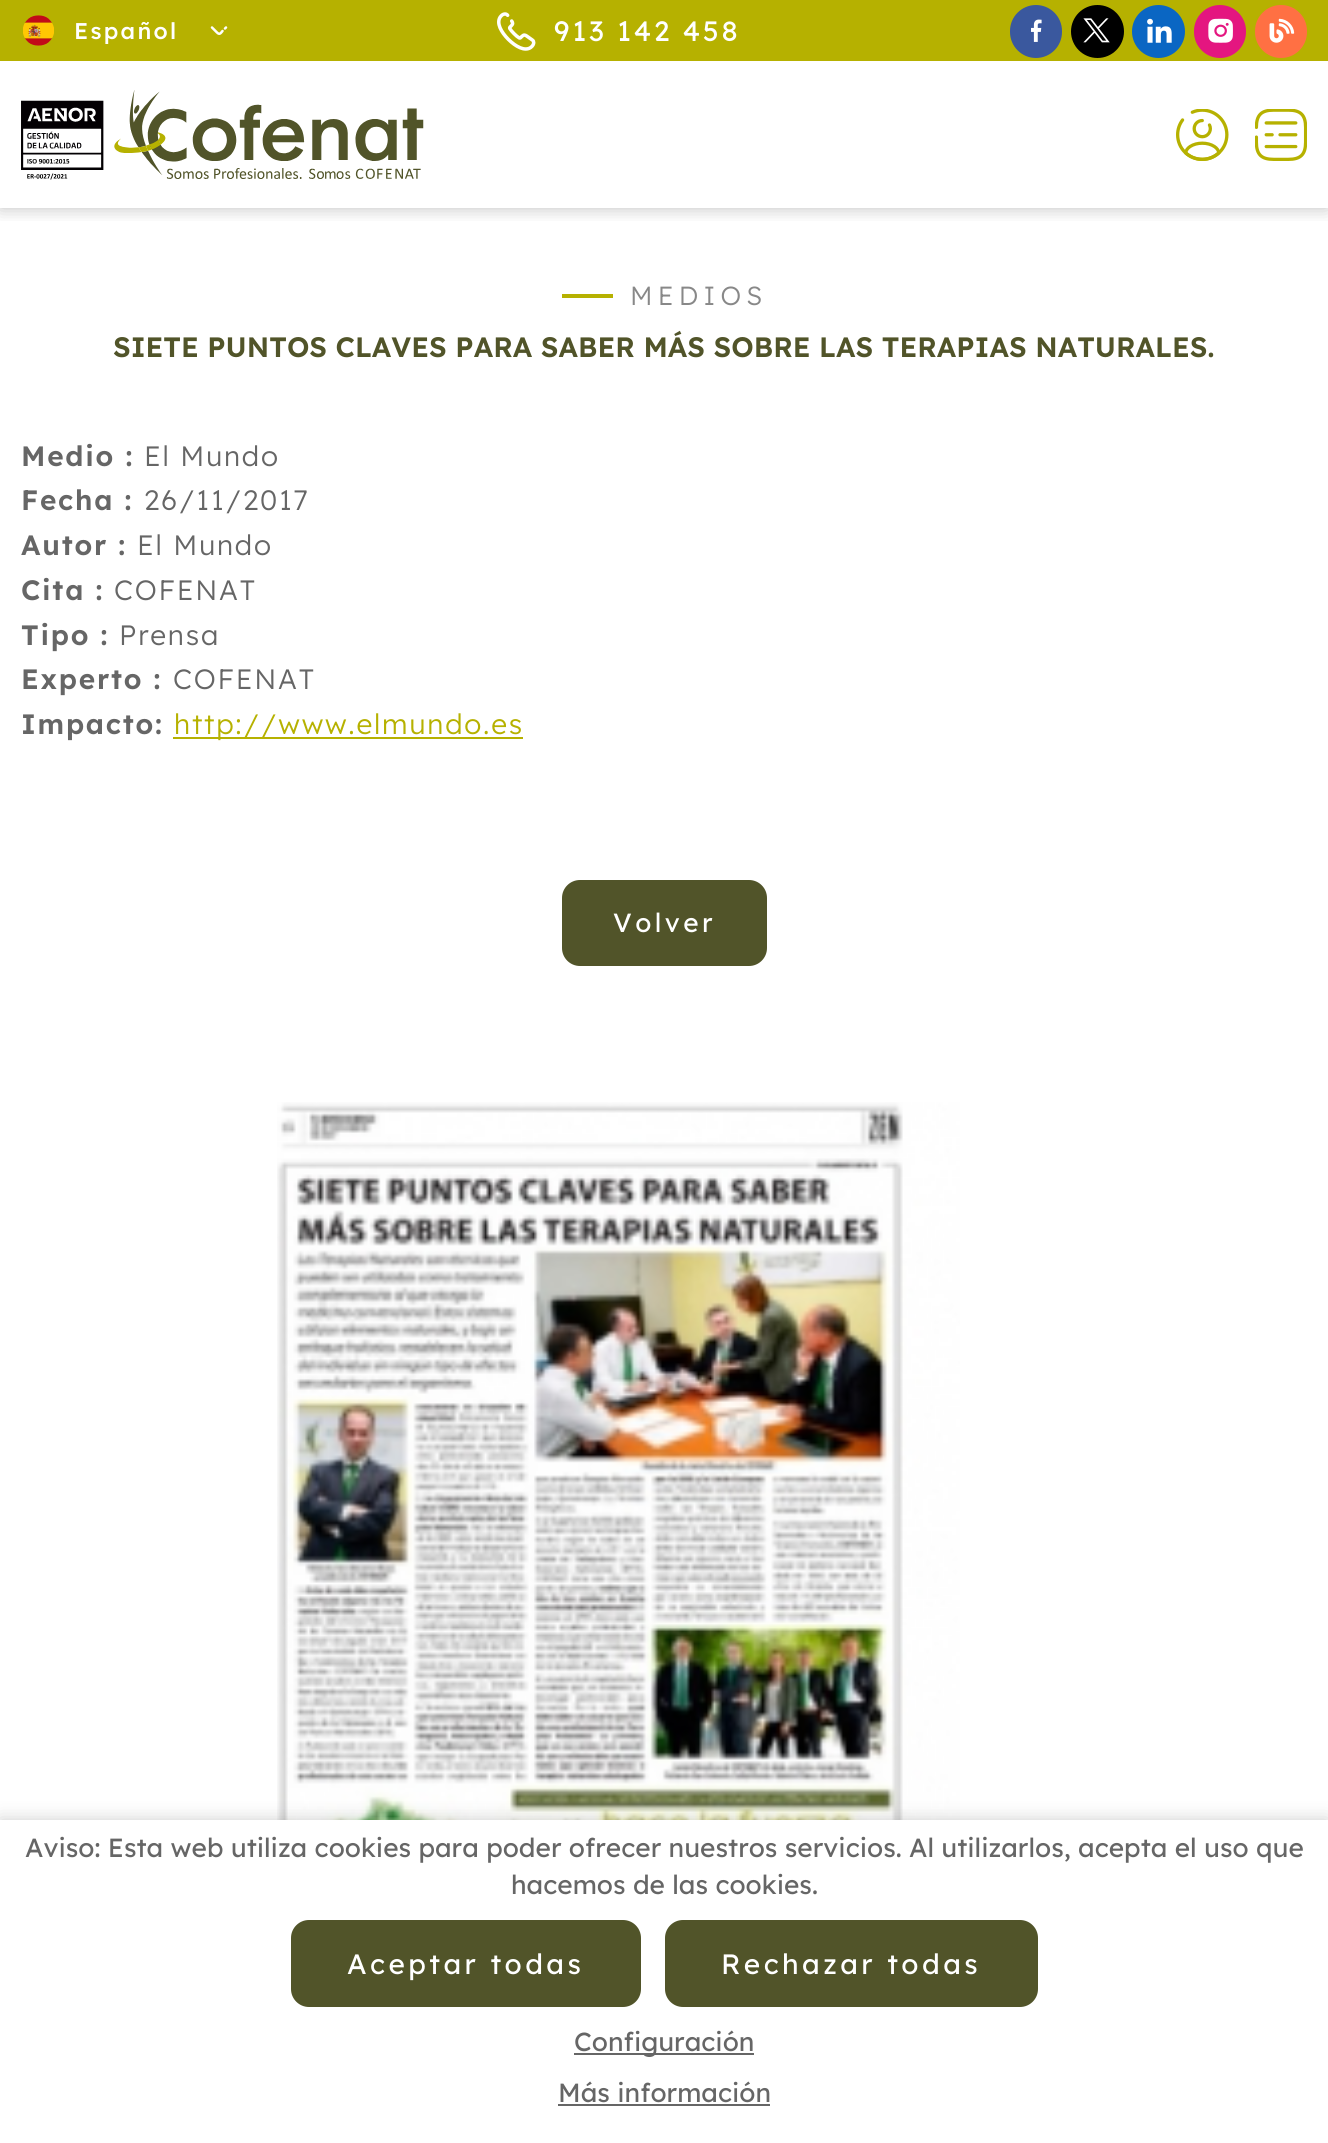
#include <cairo.h>
#include <math.h>
#include <stddef.h>

static cairo_t *ctx;

static void use_color(int r, int g, int b) {
    cairo_set_source_rgb(ctx, r / 255.0, g / 255.0, b / 255.0);
}

static void spaced_text(double x, double y, const char *s, double letter, double word) {
    cairo_move_to(ctx, x, y);
    while (*s) {
        char ch[5] = {0};
        int n = 0;
        do ch[n++] = *s++; while ((*s & 0xC0) == 0x80);
        cairo_show_text(ctx, ch);
        cairo_rel_move_to(ctx, letter + word * (*ch == ' '), 0);
    }
}

static void round_rect(double x, double y, double w, double h, double r) {
    cairo_new_sub_path(ctx);
    cairo_arc(ctx, x + w - r, y + h - r, r, 0, M_PI / 2);
    cairo_arc(ctx, x + r, y + h - r, r, M_PI / 2, M_PI);
    cairo_arc(ctx, x + r, y + r, r, M_PI, 1.5 * M_PI);
    cairo_arc(ctx, x + w - r, y + r, r, 1.5 * M_PI, 2 * M_PI);
    cairo_close_path(ctx);
}

static void shadow(double x, double y, double w, double h, double r, double blur, double alpha) {
    cairo_push_group_with_content(ctx, CAIRO_CONTENT_ALPHA);
    cairo_set_operator(ctx, CAIRO_OPERATOR_SOURCE);
    for (int i = 15; i >= -15 && fmin(w, h) + blur * i / 3 > 0; i -= 2) {
        double e = blur * i / 6;
        cairo_set_source_rgba(ctx, 0, 0, 0, alpha * erfc((i - 1) / 8.5) / 2);
        round_rect(x - e, y - e, w + 2 * e, h + 2 * e, fmax(0, fmin(r + e + blur * .6, fmin(w, h) / 2 + e)));
        cairo_fill(ctx);
    }
    cairo_pattern_t *soft = cairo_pop_group(ctx);
    cairo_mask(ctx, soft);
    cairo_pattern_destroy(soft);
}

static void picture(const char *path, double x, double y, double w, double h) {
    cairo_surface_t *image = cairo_image_surface_create_from_png(path);
    cairo_save(ctx);
    cairo_set_source_surface(ctx, image, x, y);
    cairo_rectangle(ctx, x, y, w, h);
    cairo_fill(ctx);
    cairo_restore(ctx);
    cairo_surface_destroy(image);
}

int main(void) {
    cairo_surface_t *surface = cairo_image_surface_create(CAIRO_FORMAT_RGB24, 1328, 2143);
    ctx = cairo_create(surface);
    cairo_font_options_t *options = cairo_font_options_create();
    cairo_font_options_set_hint_metrics(options, CAIRO_HINT_METRICS_OFF);
    cairo_font_options_set_hint_style(options, CAIRO_HINT_STYLE_NONE);
    cairo_set_font_options(ctx, options);
    cairo_set_miter_limit(ctx, 4);
    use_color(255, 255, 255);
    cairo_paint(ctx);
    cairo_save(ctx);
    cairo_rectangle(ctx, 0, 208, 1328, 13);
    cairo_clip(ctx);
    use_color(0, 0, 0);
    shadow(0, 0, 1328, 208, 0, 9, 0.25);
    cairo_restore(ctx);
    use_color(182, 177, 0);
    cairo_rectangle(ctx, 0, 0, 1328, 61);
    cairo_fill(ctx);
    picture("img1.png", 23, 15, 31, 31);
    cairo_select_font_face(ctx, "Lexend Medium", CAIRO_FONT_SLANT_NORMAL, CAIRO_FONT_WEIGHT_NORMAL);
    cairo_set_font_size(ctx, 22.75);
    use_color(255, 255, 255);
    spaced_text(74, 39, "Español", 2.25, 0);
    cairo_new_path(ctx);
    cairo_move_to(ctx, 222.5, 31);
    cairo_curve_to(ctx, 220.5, 33.5, 219.5, 35, 217, 32.5);
    cairo_line_to(ctx, 212, 27.5);
    cairo_move_to(ctx, 226, 27.5);
    cairo_line_to(ctx, 225, 28.5);
    cairo_set_line_width(ctx, 2.5);
    cairo_set_line_cap(ctx, CAIRO_LINE_CAP_ROUND);
    cairo_set_line_join(ctx, CAIRO_LINE_JOIN_ROUND);
    cairo_stroke(ctx);
    picture("img2.png", 497, 12, 39, 39);
    cairo_select_font_face(ctx, "Lexend", CAIRO_FONT_SLANT_NORMAL, CAIRO_FONT_WEIGHT_NORMAL);
    cairo_set_font_size(ctx, 28);
    spaced_text(554, 41, "913 142 458", 2.75, 0);
    use_color(58, 88, 158);
    round_rect(1010, 5, 52, 53, 26);
    cairo_fill(ctx);
    picture("img3.png", 1031, 19, 11, 23);
    use_color(0, 0, 0);
    cairo_arc(ctx, 1097.5, 31.5, 26.5, 0, 2 * M_PI);
    cairo_fill(ctx);
    picture("img4.png", 1083, 18, 27, 25);
    use_color(10, 102, 195);
    cairo_arc(ctx, 1158.5, 31.5, 26.5, 0, 2 * M_PI);
    cairo_fill(ctx);
    picture("img5.png", 1147, 18, 25, 25);
    use_color(228, 22, 128);
    round_rect(1194, 5, 52, 53, 26);
    cairo_fill(ctx);
    picture("img6.png", 1208, 18, 25, 25);
    use_color(255, 112, 67);
    round_rect(1255, 5, 52, 53, 26);
    cairo_fill(ctx);
    picture("img7.png", 1269, 18, 26, 25);
    picture("img8.png", 21, 90, 403, 90);
    picture("img9.png", 1176, 109, 53, 52);
    picture("img10.png", 1255, 109, 52, 52);
    use_color(182, 177, 0);
    cairo_rectangle(ctx, 562, 294, 51, 4);
    cairo_fill(ctx);
    cairo_select_font_face(ctx, "Lexend Light", CAIRO_FONT_SLANT_NORMAL, CAIRO_FONT_WEIGHT_NORMAL);
    cairo_set_font_size(ctx, 26.25);
    use_color(136, 136, 136);
    spaced_text(630, 305, "MEDIOS", 5.25, 0);
    cairo_select_font_face(ctx, "Lexend SemiBold", CAIRO_FONT_SLANT_NORMAL, CAIRO_FONT_WEIGHT_NORMAL);
    cairo_set_font_size(ctx, 28);
    use_color(81, 84, 41);
    cairo_move_to(ctx, 113, 357);
    cairo_show_text(ctx, "SIETE PUNTOS CLAVES PARA SABER MÁS SOBRE LAS TERAPIAS NATURALES.");
    use_color(102, 102, 102);
    spaced_text(21, 466, "Medio :", 1.75, 0);
    cairo_select_font_face(ctx, "Lexend Light", CAIRO_FONT_SLANT_NORMAL, CAIRO_FONT_WEIGHT_NORMAL);
    spaced_text(144, 466, "El Mundo", 1.75, 0);
    cairo_select_font_face(ctx, "Lexend SemiBold", CAIRO_FONT_SLANT_NORMAL, CAIRO_FONT_WEIGHT_NORMAL);
    spaced_text(21, 510, "Fecha :", 1.75, 0);
    cairo_select_font_face(ctx, "Lexend Light", CAIRO_FONT_SLANT_NORMAL, CAIRO_FONT_WEIGHT_NORMAL);
    spaced_text(144, 510, "26/11/2017", 1.75, 0);
    cairo_select_font_face(ctx, "Lexend SemiBold", CAIRO_FONT_SLANT_NORMAL, CAIRO_FONT_WEIGHT_NORMAL);
    spaced_text(21, 555, "Autor :", 1.75, 0);
    cairo_select_font_face(ctx, "Lexend Light", CAIRO_FONT_SLANT_NORMAL, CAIRO_FONT_WEIGHT_NORMAL);
    spaced_text(137, 555, "El Mundo", 1.75, 0);
    cairo_select_font_face(ctx, "Lexend SemiBold", CAIRO_FONT_SLANT_NORMAL, CAIRO_FONT_WEIGHT_NORMAL);
    spaced_text(21, 600, "Cita :", 1.75, 0);
    cairo_select_font_face(ctx, "Lexend Light", CAIRO_FONT_SLANT_NORMAL, CAIRO_FONT_WEIGHT_NORMAL);
    spaced_text(114, 600, "COFENAT", 1.75, 0);
    cairo_select_font_face(ctx, "Lexend SemiBold", CAIRO_FONT_SLANT_NORMAL, CAIRO_FONT_WEIGHT_NORMAL);
    spaced_text(21, 645, "Tipo :", 1.75, 0);
    cairo_select_font_face(ctx, "Lexend Light", CAIRO_FONT_SLANT_NORMAL, CAIRO_FONT_WEIGHT_NORMAL);
    spaced_text(119, 645, "Prensa", 1.75, 0);
    cairo_select_font_face(ctx, "Lexend SemiBold", CAIRO_FONT_SLANT_NORMAL, CAIRO_FONT_WEIGHT_NORMAL);
    spaced_text(21, 689, "Experto :", 1.75, 0);
    cairo_select_font_face(ctx, "Lexend Light", CAIRO_FONT_SLANT_NORMAL, CAIRO_FONT_WEIGHT_NORMAL);
    spaced_text(173, 689, "COFENAT", 1.75, 0);
    cairo_select_font_face(ctx, "Lexend SemiBold", CAIRO_FONT_SLANT_NORMAL, CAIRO_FONT_WEIGHT_NORMAL);
    spaced_text(21, 734, "Impacto:", 1.75, 0);
    use_color(182, 177, 0);
    cairo_rectangle(ctx, 173, 737, 350, 2);
    cairo_fill(ctx);
    cairo_select_font_face(ctx, "Lexend Light", CAIRO_FONT_SLANT_NORMAL, CAIRO_FONT_WEIGHT_NORMAL);
    spaced_text(174, 734, "http://www.elmundo.es", 1.75, 0);
    use_color(81, 84, 41);
    round_rect(562, 880, 205, 86, 18);
    cairo_fill(ctx);
    cairo_select_font_face(ctx, "Lexend", CAIRO_FONT_SLANT_NORMAL, CAIRO_FONT_WEIGHT_NORMAL);
    cairo_set_font_size(ctx, 26.25);
    use_color(255, 255, 255);
    spaced_text(613, 932, "Volver", 3.4, 0);
    picture("img11.png", 277, 1102, 683, 718);
    use_color(0, 0, 0);
    shadow(0, 1820, 1328, 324, 0, 9, 0.2);
    use_color(255, 255, 255);
    cairo_rectangle(ctx, 0, 1820, 1328, 323);
    cairo_fill(ctx);
    use_color(102, 102, 102);
    cairo_move_to(ctx, 25, 1857);
    cairo_show_text(ctx, "Aviso: Esta web utiliza cookies para poder ofrecer nuestros servicios. Al utilizarlos, acepta el uso que");
    cairo_move_to(ctx, 511, 1894);
    cairo_show_text(ctx, "hacemos de las cookies.");
    use_color(81, 84, 41);
    round_rect(291, 1920, 350, 87, 18);
    cairo_fill(ctx);
    cairo_set_font_size(ctx, 28);
    use_color(255, 255, 255);
    spaced_text(347, 1974, "Aceptar todas", 3.4, 0);
    use_color(81, 84, 41);
    round_rect(665, 1920, 373, 87, 18);
    cairo_fill(ctx);
    use_color(255, 255, 255);
    spaced_text(721, 1974, "Rechazar todas", 3.4, 0);
    use_color(102, 102, 102);
    cairo_rectangle(ctx, 574, 2053, 180, 2);
    cairo_fill(ctx);
    cairo_set_font_size(ctx, 26.25);
    cairo_move_to(ctx, 574, 2051);
    cairo_show_text(ctx, "Configuración");
    cairo_move_to(ctx, 558, 2102);
    cairo_show_text(ctx, "Más información");
    cairo_rectangle(ctx, 558, 2104, 212, 2);
    cairo_fill(ctx);
    cairo_surface_write_to_png(surface, "result.png");
    cairo_font_options_destroy(options);
    cairo_destroy(ctx);
    cairo_surface_destroy(surface);
    return 0;
}
